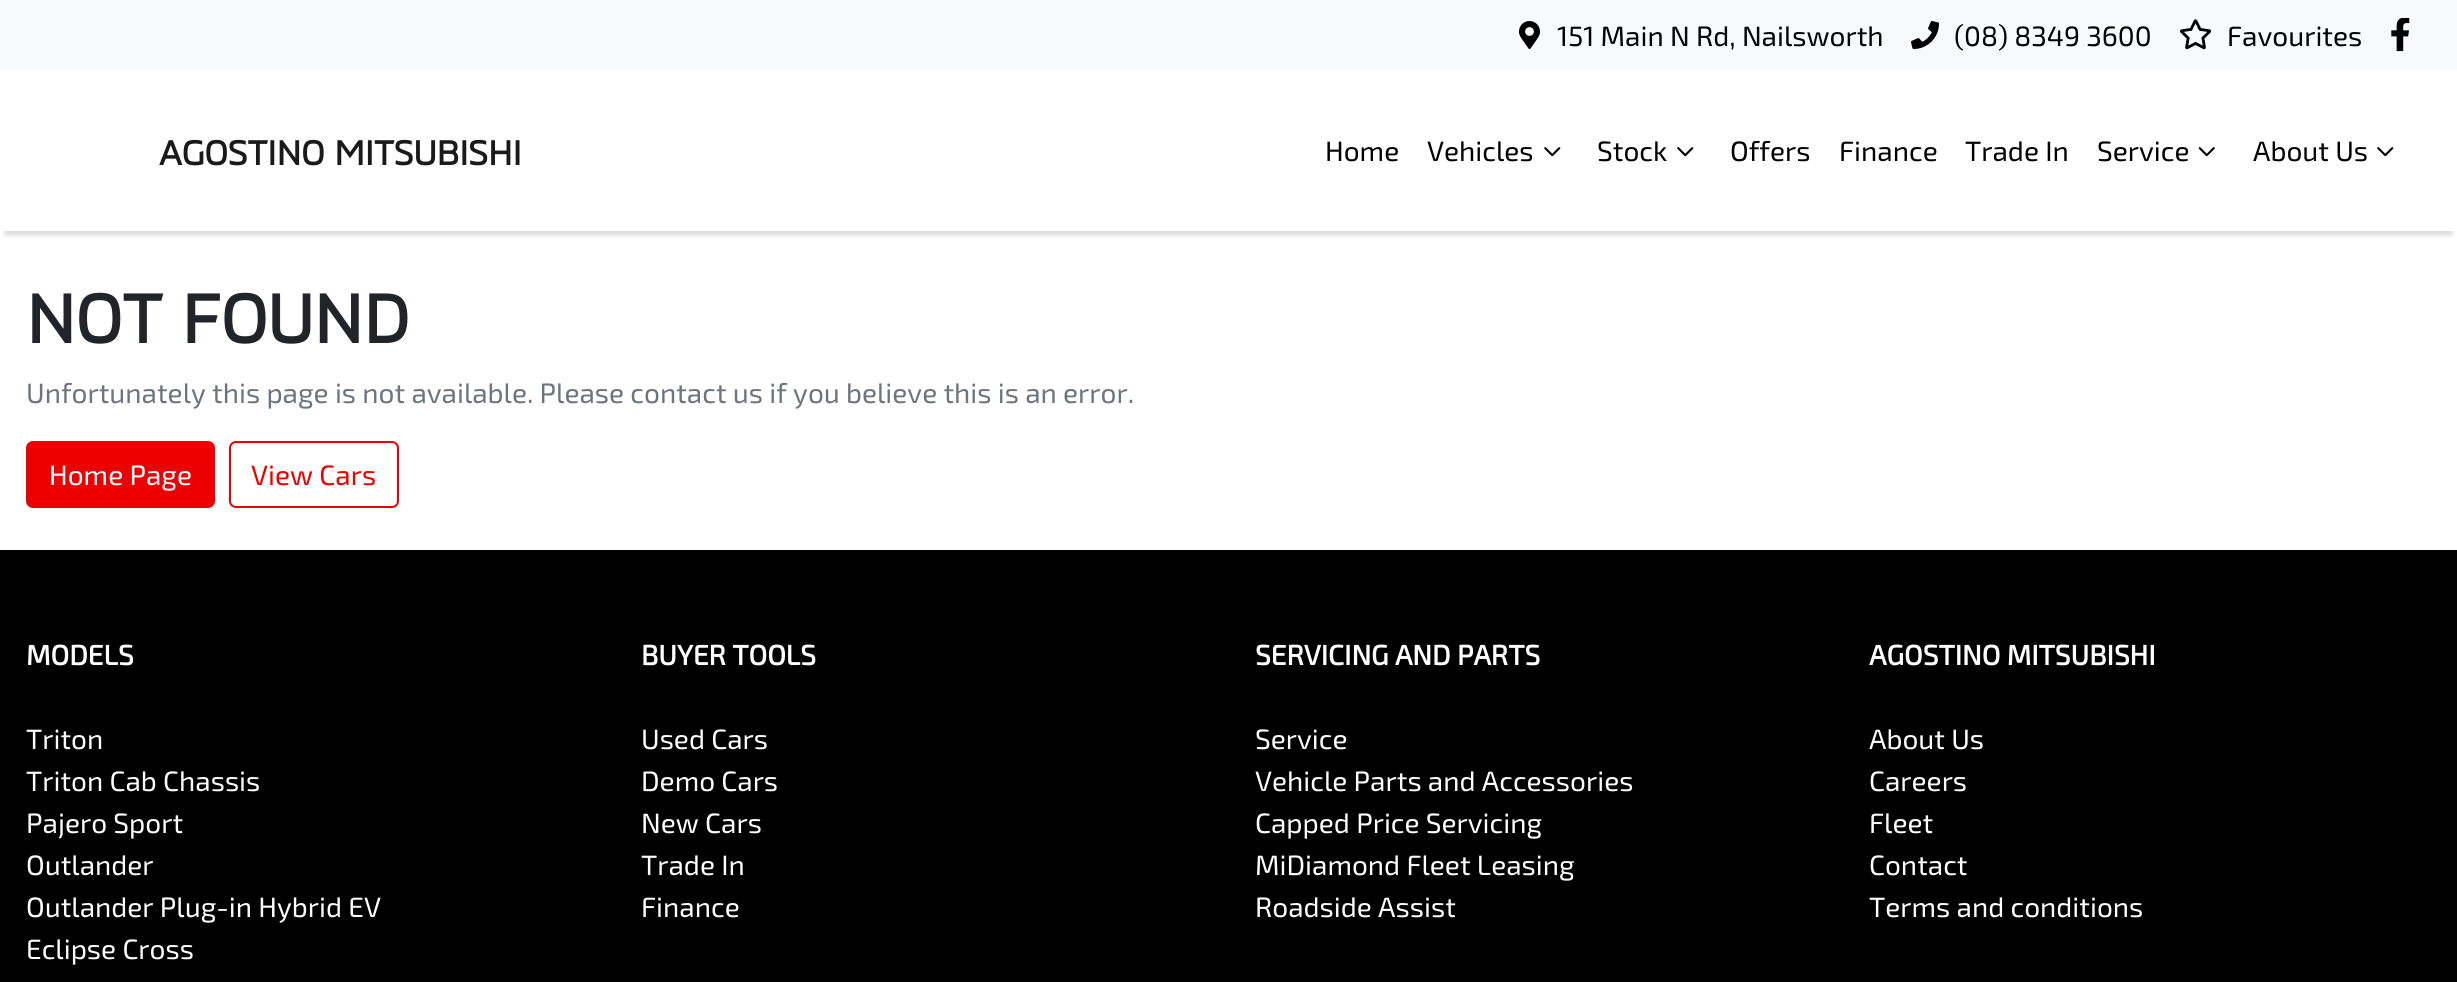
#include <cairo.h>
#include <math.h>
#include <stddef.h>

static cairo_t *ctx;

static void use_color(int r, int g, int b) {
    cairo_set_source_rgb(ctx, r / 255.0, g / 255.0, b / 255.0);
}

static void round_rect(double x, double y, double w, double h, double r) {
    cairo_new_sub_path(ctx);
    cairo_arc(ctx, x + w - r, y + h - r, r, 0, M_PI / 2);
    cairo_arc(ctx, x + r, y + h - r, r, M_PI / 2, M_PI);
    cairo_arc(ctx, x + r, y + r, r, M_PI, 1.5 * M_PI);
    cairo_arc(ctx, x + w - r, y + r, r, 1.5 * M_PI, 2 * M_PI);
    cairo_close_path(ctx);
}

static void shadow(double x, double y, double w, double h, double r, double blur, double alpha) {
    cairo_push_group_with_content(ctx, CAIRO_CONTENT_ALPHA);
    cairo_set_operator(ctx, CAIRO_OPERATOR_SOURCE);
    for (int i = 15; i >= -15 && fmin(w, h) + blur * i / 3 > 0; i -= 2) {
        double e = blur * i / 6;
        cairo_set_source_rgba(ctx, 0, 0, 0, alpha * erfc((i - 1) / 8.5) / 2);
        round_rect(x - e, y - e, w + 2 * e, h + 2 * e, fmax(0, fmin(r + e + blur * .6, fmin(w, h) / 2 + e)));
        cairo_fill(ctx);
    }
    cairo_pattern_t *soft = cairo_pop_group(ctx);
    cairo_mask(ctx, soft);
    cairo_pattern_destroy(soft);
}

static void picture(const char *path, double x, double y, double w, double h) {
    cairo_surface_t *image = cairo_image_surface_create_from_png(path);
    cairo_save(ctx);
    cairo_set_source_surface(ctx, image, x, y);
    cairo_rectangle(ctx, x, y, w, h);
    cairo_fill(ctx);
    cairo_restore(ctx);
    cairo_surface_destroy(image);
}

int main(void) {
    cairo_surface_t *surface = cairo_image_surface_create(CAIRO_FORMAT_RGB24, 2457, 982);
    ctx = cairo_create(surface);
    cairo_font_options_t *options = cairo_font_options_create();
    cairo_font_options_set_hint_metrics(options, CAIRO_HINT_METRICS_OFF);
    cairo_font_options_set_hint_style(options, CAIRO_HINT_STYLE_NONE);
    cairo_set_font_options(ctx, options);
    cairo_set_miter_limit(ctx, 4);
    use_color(255, 255, 255);
    cairo_paint(ctx);
    use_color(248, 249, 250);
    cairo_rectangle(ctx, 0, 0, 2457, 70);
    cairo_fill(ctx);
    picture("img1.png", 1519, 21, 21, 28);
    cairo_select_font_face(ctx, "Exo 2", CAIRO_FONT_SLANT_NORMAL, CAIRO_FONT_WEIGHT_NORMAL);
    cairo_set_font_size(ctx, 28);
    use_color(0, 0, 0);
    cairo_move_to(ctx, 1557, 46);
    cairo_show_text(ctx, "151 Main N Rd, Nailsworth");
    picture("img2.png", 1911, 21, 28, 28);
    cairo_move_to(ctx, 1954, 46);
    cairo_show_text(ctx, "(08) 8349 3600");
    picture("img3.png", 2180, 19, 32, 31);
    cairo_move_to(ctx, 2227, 46);
    cairo_show_text(ctx, "Favourites");
    picture("img4.png", 2391, 18, 19, 34);
    cairo_save(ctx);
    cairo_rectangle(ctx, 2, 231, 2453, 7);
    cairo_clip(ctx);
    use_color(0, 0, 0);
    shadow(5, 84, 2447, 151, 0, 2.5, 0.15);
    cairo_restore(ctx);
    cairo_select_font_face(ctx, "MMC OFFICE", CAIRO_FONT_SLANT_NORMAL, CAIRO_FONT_WEIGHT_BOLD);
    cairo_set_font_size(ctx, 35);
    use_color(26, 26, 26);
    cairo_move_to(ctx, 159, 165);
    cairo_show_text(ctx, "AGOSTINO MITSUBISHI");
    cairo_select_font_face(ctx, "Exo 2", CAIRO_FONT_SLANT_NORMAL, CAIRO_FONT_WEIGHT_NORMAL);
    cairo_set_font_size(ctx, 28);
    use_color(0, 0, 0);
    cairo_move_to(ctx, 1325, 161);
    cairo_show_text(ctx, "Home");
    cairo_move_to(ctx, 1427, 161);
    cairo_show_text(ctx, "Vehicles");
    picture("img5.png", 1544, 147, 17, 10);
    cairo_move_to(ctx, 1597, 161);
    cairo_show_text(ctx, "Stock");
    picture("img5.png", 1677, 147, 17, 10);
    cairo_move_to(ctx, 1730, 161);
    cairo_show_text(ctx, "Offers");
    cairo_move_to(ctx, 1839, 161);
    cairo_show_text(ctx, "Finance");
    cairo_move_to(ctx, 1965, 161);
    cairo_show_text(ctx, "Trade In");
    cairo_move_to(ctx, 2097, 161);
    cairo_show_text(ctx, "Service");
    picture("img6.png", 2198, 147, 17, 10);
    cairo_move_to(ctx, 2253, 161);
    cairo_show_text(ctx, "About Us");
    picture("img5.png", 2377, 147, 17, 10);
    cairo_select_font_face(ctx, "MMC OFFICE", CAIRO_FONT_SLANT_NORMAL, CAIRO_FONT_WEIGHT_BOLD);
    cairo_set_font_size(ctx, 70);
    use_color(33, 37, 41);
    cairo_move_to(ctx, 26, 343);
    cairo_show_text(ctx, "NOT FOUND");
    cairo_select_font_face(ctx, "Exo 2", CAIRO_FONT_SLANT_NORMAL, CAIRO_FONT_WEIGHT_NORMAL);
    cairo_set_font_size(ctx, 28);
    use_color(108, 117, 125);
    cairo_move_to(ctx, 26, 403);
    cairo_show_text(ctx, "Unfortunately this page is not available. Please contact us if you believe this is an error.");
    use_color(237, 0, 0);
    round_rect(27, 442, 187, 65, 6);
    cairo_fill_preserve(ctx);
    cairo_stroke(ctx);
    use_color(255, 255, 255);
    cairo_move_to(ctx, 49, 485);
    cairo_show_text(ctx, "Home Page");
    round_rect(230, 442, 168, 65, 6);
    use_color(237, 0, 0);
    cairo_stroke(ctx);
    cairo_move_to(ctx, 251, 485);
    cairo_show_text(ctx, "View Cars");
    use_color(0, 0, 0);
    cairo_rectangle(ctx, 0, 550, 2457, 432);
    cairo_fill(ctx);
    cairo_select_font_face(ctx, "Exo 2", CAIRO_FONT_SLANT_NORMAL, CAIRO_FONT_WEIGHT_BOLD);
    use_color(255, 255, 255);
    cairo_move_to(ctx, 26, 665);
    cairo_show_text(ctx, "MODELS");
    cairo_select_font_face(ctx, "Exo 2", CAIRO_FONT_SLANT_NORMAL, CAIRO_FONT_WEIGHT_NORMAL);
    cairo_move_to(ctx, 26, 749);
    cairo_show_text(ctx, "Triton");
    cairo_move_to(ctx, 26, 791);
    cairo_show_text(ctx, "Triton Cab Chassis");
    cairo_move_to(ctx, 26, 833);
    cairo_show_text(ctx, "Pajero Sport");
    cairo_move_to(ctx, 26, 875);
    cairo_show_text(ctx, "Outlander");
    cairo_move_to(ctx, 26, 917);
    cairo_show_text(ctx, "Outlander Plug-in Hybrid EV");
    cairo_move_to(ctx, 26, 959);
    cairo_show_text(ctx, "Eclipse Cross");
    cairo_select_font_face(ctx, "Exo 2", CAIRO_FONT_SLANT_NORMAL, CAIRO_FONT_WEIGHT_BOLD);
    cairo_move_to(ctx, 641, 665);
    cairo_show_text(ctx, "BUYER TOOLS");
    cairo_select_font_face(ctx, "Exo 2", CAIRO_FONT_SLANT_NORMAL, CAIRO_FONT_WEIGHT_NORMAL);
    cairo_move_to(ctx, 641, 749);
    cairo_show_text(ctx, "Used Cars");
    cairo_move_to(ctx, 641, 791);
    cairo_show_text(ctx, "Demo Cars");
    cairo_move_to(ctx, 641, 833);
    cairo_show_text(ctx, "New Cars");
    cairo_move_to(ctx, 641, 875);
    cairo_show_text(ctx, "Trade In");
    cairo_move_to(ctx, 641, 917);
    cairo_show_text(ctx, "Finance");
    cairo_select_font_face(ctx, "Exo 2", CAIRO_FONT_SLANT_NORMAL, CAIRO_FONT_WEIGHT_BOLD);
    cairo_move_to(ctx, 1255, 665);
    cairo_show_text(ctx, "SERVICING AND PARTS");
    cairo_select_font_face(ctx, "Exo 2", CAIRO_FONT_SLANT_NORMAL, CAIRO_FONT_WEIGHT_NORMAL);
    cairo_move_to(ctx, 1255, 749);
    cairo_show_text(ctx, "Service");
    cairo_move_to(ctx, 1255, 791);
    cairo_show_text(ctx, "Vehicle Parts and Accessories");
    cairo_move_to(ctx, 1255, 833);
    cairo_show_text(ctx, "Capped Price Servicing");
    cairo_move_to(ctx, 1255, 875);
    cairo_show_text(ctx, "MiDiamond Fleet Leasing");
    cairo_move_to(ctx, 1255, 917);
    cairo_show_text(ctx, "Roadside Assist");
    cairo_select_font_face(ctx, "Exo 2", CAIRO_FONT_SLANT_NORMAL, CAIRO_FONT_WEIGHT_BOLD);
    cairo_move_to(ctx, 1869, 665);
    cairo_show_text(ctx, "AGOSTINO MITSUBISHI");
    cairo_select_font_face(ctx, "Exo 2", CAIRO_FONT_SLANT_NORMAL, CAIRO_FONT_WEIGHT_NORMAL);
    cairo_move_to(ctx, 1869, 749);
    cairo_show_text(ctx, "About Us");
    cairo_move_to(ctx, 1869, 791);
    cairo_show_text(ctx, "Careers");
    cairo_move_to(ctx, 1869, 833);
    cairo_show_text(ctx, "Fleet");
    cairo_move_to(ctx, 1869, 875);
    cairo_show_text(ctx, "Contact");
    cairo_move_to(ctx, 1869, 917);
    cairo_show_text(ctx, "Terms and conditions");
    cairo_surface_write_to_png(surface, "result.png");
    cairo_font_options_destroy(options);
    cairo_destroy(ctx);
    cairo_surface_destroy(surface);
    return 0;
}
